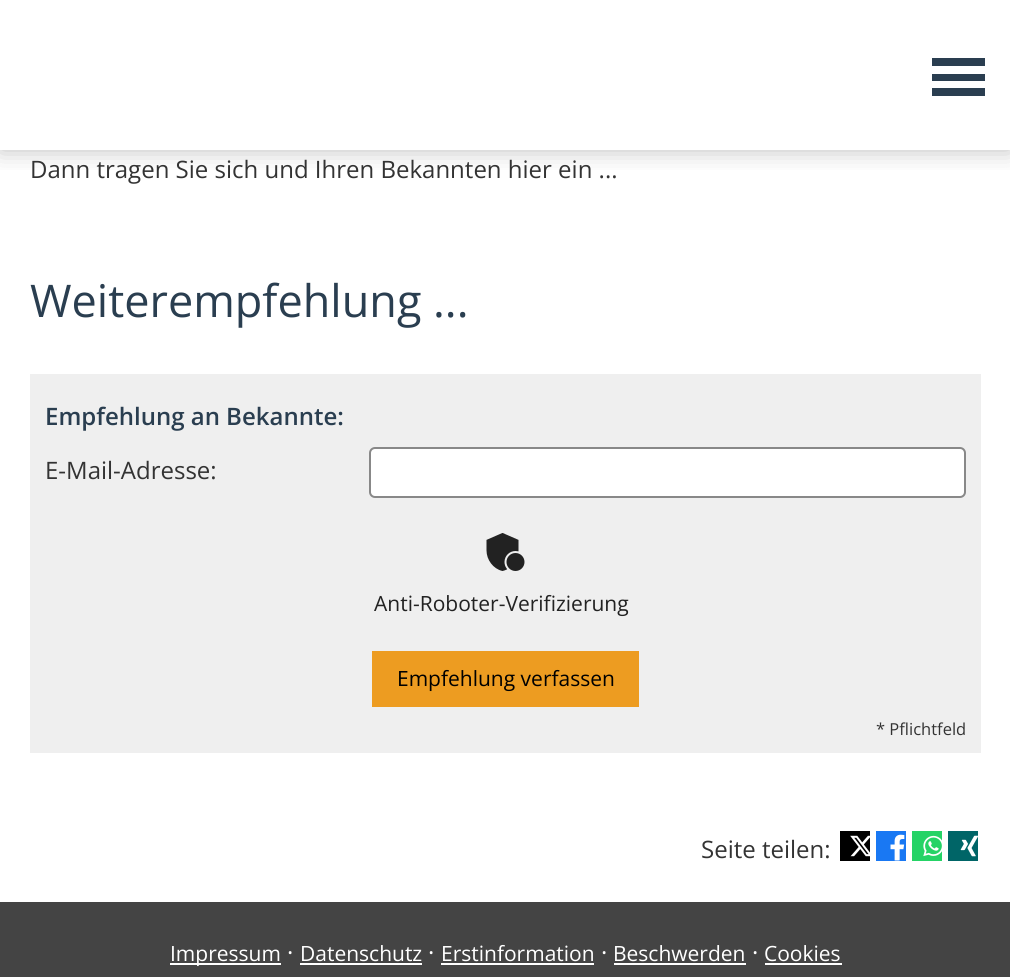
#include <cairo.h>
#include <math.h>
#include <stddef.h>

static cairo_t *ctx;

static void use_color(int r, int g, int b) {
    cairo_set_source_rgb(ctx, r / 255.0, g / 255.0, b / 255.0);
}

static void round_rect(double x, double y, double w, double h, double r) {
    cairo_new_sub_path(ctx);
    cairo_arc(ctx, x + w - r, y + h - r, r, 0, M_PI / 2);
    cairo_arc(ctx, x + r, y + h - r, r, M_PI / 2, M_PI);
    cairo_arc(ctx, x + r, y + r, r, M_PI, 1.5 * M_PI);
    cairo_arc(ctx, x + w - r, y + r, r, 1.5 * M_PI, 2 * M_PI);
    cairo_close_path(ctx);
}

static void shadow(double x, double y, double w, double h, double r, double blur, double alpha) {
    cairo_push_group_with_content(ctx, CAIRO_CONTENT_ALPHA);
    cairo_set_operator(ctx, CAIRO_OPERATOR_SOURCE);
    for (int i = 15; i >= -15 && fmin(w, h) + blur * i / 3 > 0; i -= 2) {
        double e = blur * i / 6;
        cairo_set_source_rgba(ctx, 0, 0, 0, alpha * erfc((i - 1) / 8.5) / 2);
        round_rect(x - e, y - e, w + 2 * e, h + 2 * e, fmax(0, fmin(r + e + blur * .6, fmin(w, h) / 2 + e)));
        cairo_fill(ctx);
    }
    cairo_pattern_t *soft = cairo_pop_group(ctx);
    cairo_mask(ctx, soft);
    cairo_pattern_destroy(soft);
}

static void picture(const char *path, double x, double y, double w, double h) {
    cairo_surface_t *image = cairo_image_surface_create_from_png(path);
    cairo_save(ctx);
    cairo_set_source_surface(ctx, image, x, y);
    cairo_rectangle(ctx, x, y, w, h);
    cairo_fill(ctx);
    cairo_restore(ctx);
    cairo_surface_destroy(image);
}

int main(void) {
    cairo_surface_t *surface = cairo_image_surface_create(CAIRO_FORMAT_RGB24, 1010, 977);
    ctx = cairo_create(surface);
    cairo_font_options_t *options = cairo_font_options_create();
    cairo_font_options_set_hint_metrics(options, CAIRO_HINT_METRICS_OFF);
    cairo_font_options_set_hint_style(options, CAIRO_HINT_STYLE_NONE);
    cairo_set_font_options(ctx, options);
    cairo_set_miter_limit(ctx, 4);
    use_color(255, 255, 255);
    cairo_paint(ctx);
    cairo_save(ctx);
    cairo_rectangle(ctx, 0, 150, 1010, 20);
    cairo_clip(ctx);
    use_color(90, 90, 90);
    shadow(0, 0, 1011, 150, 0, 12, 0.4);
    cairo_restore(ctx);
    use_color(42, 62, 80);
    cairo_new_path(ctx);
    cairo_move_to(ctx, 932, 58);
    cairo_line_to(ctx, 985, 58);
    cairo_line_to(ctx, 985, 66);
    cairo_line_to(ctx, 932, 66);
    cairo_close_path(ctx);
    cairo_move_to(ctx, 932, 74);
    cairo_line_to(ctx, 985, 74);
    cairo_line_to(ctx, 985, 81);
    cairo_line_to(ctx, 932, 81);
    cairo_close_path(ctx);
    cairo_move_to(ctx, 932, 88);
    cairo_line_to(ctx, 985, 88);
    cairo_line_to(ctx, 985, 96);
    cairo_line_to(ctx, 932, 96);
    cairo_close_path(ctx);
    cairo_fill(ctx);
    cairo_select_font_face(ctx, "Open Sans", CAIRO_FONT_SLANT_NORMAL, CAIRO_FONT_WEIGHT_NORMAL);
    cairo_set_font_size(ctx, 24);
    use_color(51, 51, 51);
    cairo_move_to(ctx, 30, 178);
    cairo_show_text(ctx, "Dann tragen Sie sich und Ihren Bekannten hier ein ...");
    cairo_set_font_size(ctx, 45);
    use_color(42, 62, 80);
    cairo_move_to(ctx, 30, 317);
    cairo_show_text(ctx, "Weiterempfehlung ...");
    use_color(239, 239, 239);
    cairo_rectangle(ctx, 30, 374, 951, 379);
    cairo_fill(ctx);
    cairo_select_font_face(ctx, "Open Sans SemiBold", CAIRO_FONT_SLANT_NORMAL, CAIRO_FONT_WEIGHT_NORMAL);
    cairo_set_font_size(ctx, 24);
    use_color(42, 62, 80);
    cairo_move_to(ctx, 45, 425);
    cairo_show_text(ctx, "Empfehlung an Bekannte:");
    cairo_select_font_face(ctx, "Open Sans", CAIRO_FONT_SLANT_NORMAL, CAIRO_FONT_WEIGHT_NORMAL);
    use_color(51, 51, 51);
    cairo_move_to(ctx, 45, 479);
    cairo_show_text(ctx, "E-Mail-Adresse:");
    use_color(255, 255, 255);
    round_rect(370, 448, 595, 49, 5);
    cairo_fill_preserve(ctx);
    use_color(136, 136, 136);
    cairo_stroke(ctx);
    picture("img1.png", 486, 533, 39, 38);
    cairo_set_font_size(ctx, 21);
    use_color(34, 34, 34);
    cairo_move_to(ctx, 374, 611);
    cairo_show_text(ctx, "Anti-Roboter-Verifizierung");
    use_color(237, 156, 33);
    cairo_rectangle(ctx, 372, 651, 267, 56);
    cairo_fill(ctx);
    use_color(0, 0, 0);
    cairo_move_to(ctx, 397, 686);
    cairo_show_text(ctx, "Empfehlung verfassen");
    cairo_set_font_size(ctx, 16.5);
    use_color(51, 51, 51);
    cairo_move_to(ctx, 876, 735);
    cairo_show_text(ctx, "* Pflichtfeld");
    cairo_set_font_size(ctx, 24);
    cairo_move_to(ctx, 701, 858);
    cairo_show_text(ctx, "Seite teilen:");
    use_color(0, 0, 0);
    cairo_rectangle(ctx, 840, 831, 30, 30);
    cairo_fill(ctx);
    picture("img2.png", 850, 835, 20, 22);
    use_color(25, 120, 243);
    cairo_rectangle(ctx, 876, 831, 30, 30);
    cairo_fill(ctx);
    picture("img3.png", 890, 834, 15, 27);
    use_color(37, 211, 102);
    cairo_rectangle(ctx, 912, 831, 30, 30);
    cairo_fill(ctx);
    picture("img4.png", 923, 835, 19, 22);
    use_color(0, 101, 103);
    cairo_rectangle(ctx, 948, 831, 30, 30);
    cairo_fill(ctx);
    picture("img5.png", 960, 835, 18, 22);
    use_color(68, 68, 68);
    cairo_rectangle(ctx, 0, 902, 1010, 75);
    cairo_fill(ctx);
    use_color(255, 255, 255);
    cairo_rectangle(ctx, 170, 963, 111, 2);
    cairo_fill(ctx);
    cairo_set_font_size(ctx, 21);
    cairo_move_to(ctx, 170, 961);
    cairo_show_text(ctx, "Impressum");
    cairo_set_font_size(ctx, 24);
    cairo_move_to(ctx, 287, 961);
    cairo_show_text(ctx, "·");
    cairo_set_font_size(ctx, 21);
    cairo_move_to(ctx, 300, 961);
    cairo_show_text(ctx, "Datenschutz");
    cairo_rectangle(ctx, 300, 963, 122, 2);
    cairo_fill(ctx);
    cairo_set_font_size(ctx, 24);
    cairo_move_to(ctx, 428, 961);
    cairo_show_text(ctx, "·");
    cairo_set_font_size(ctx, 21);
    cairo_move_to(ctx, 441, 961);
    cairo_show_text(ctx, "Erstinformation");
    cairo_rectangle(ctx, 441, 963, 153, 2);
    cairo_fill(ctx);
    cairo_set_font_size(ctx, 24);
    cairo_move_to(ctx, 601, 961);
    cairo_show_text(ctx, "·");
    cairo_set_font_size(ctx, 21);
    cairo_move_to(ctx, 613, 961);
    cairo_show_text(ctx, "Beschwerden");
    cairo_rectangle(ctx, 614, 963, 132, 2);
    cairo_fill(ctx);
    cairo_set_font_size(ctx, 24);
    cairo_move_to(ctx, 752, 961);
    cairo_show_text(ctx, "·");
    cairo_set_font_size(ctx, 21);
    cairo_move_to(ctx, 764, 961);
    cairo_show_text(ctx, "Cookies");
    cairo_rectangle(ctx, 765, 963, 77, 2);
    cairo_fill(ctx);
    cairo_surface_write_to_png(surface, "result.png");
    cairo_font_options_destroy(options);
    cairo_destroy(ctx);
    cairo_surface_destroy(surface);
    return 0;
}
